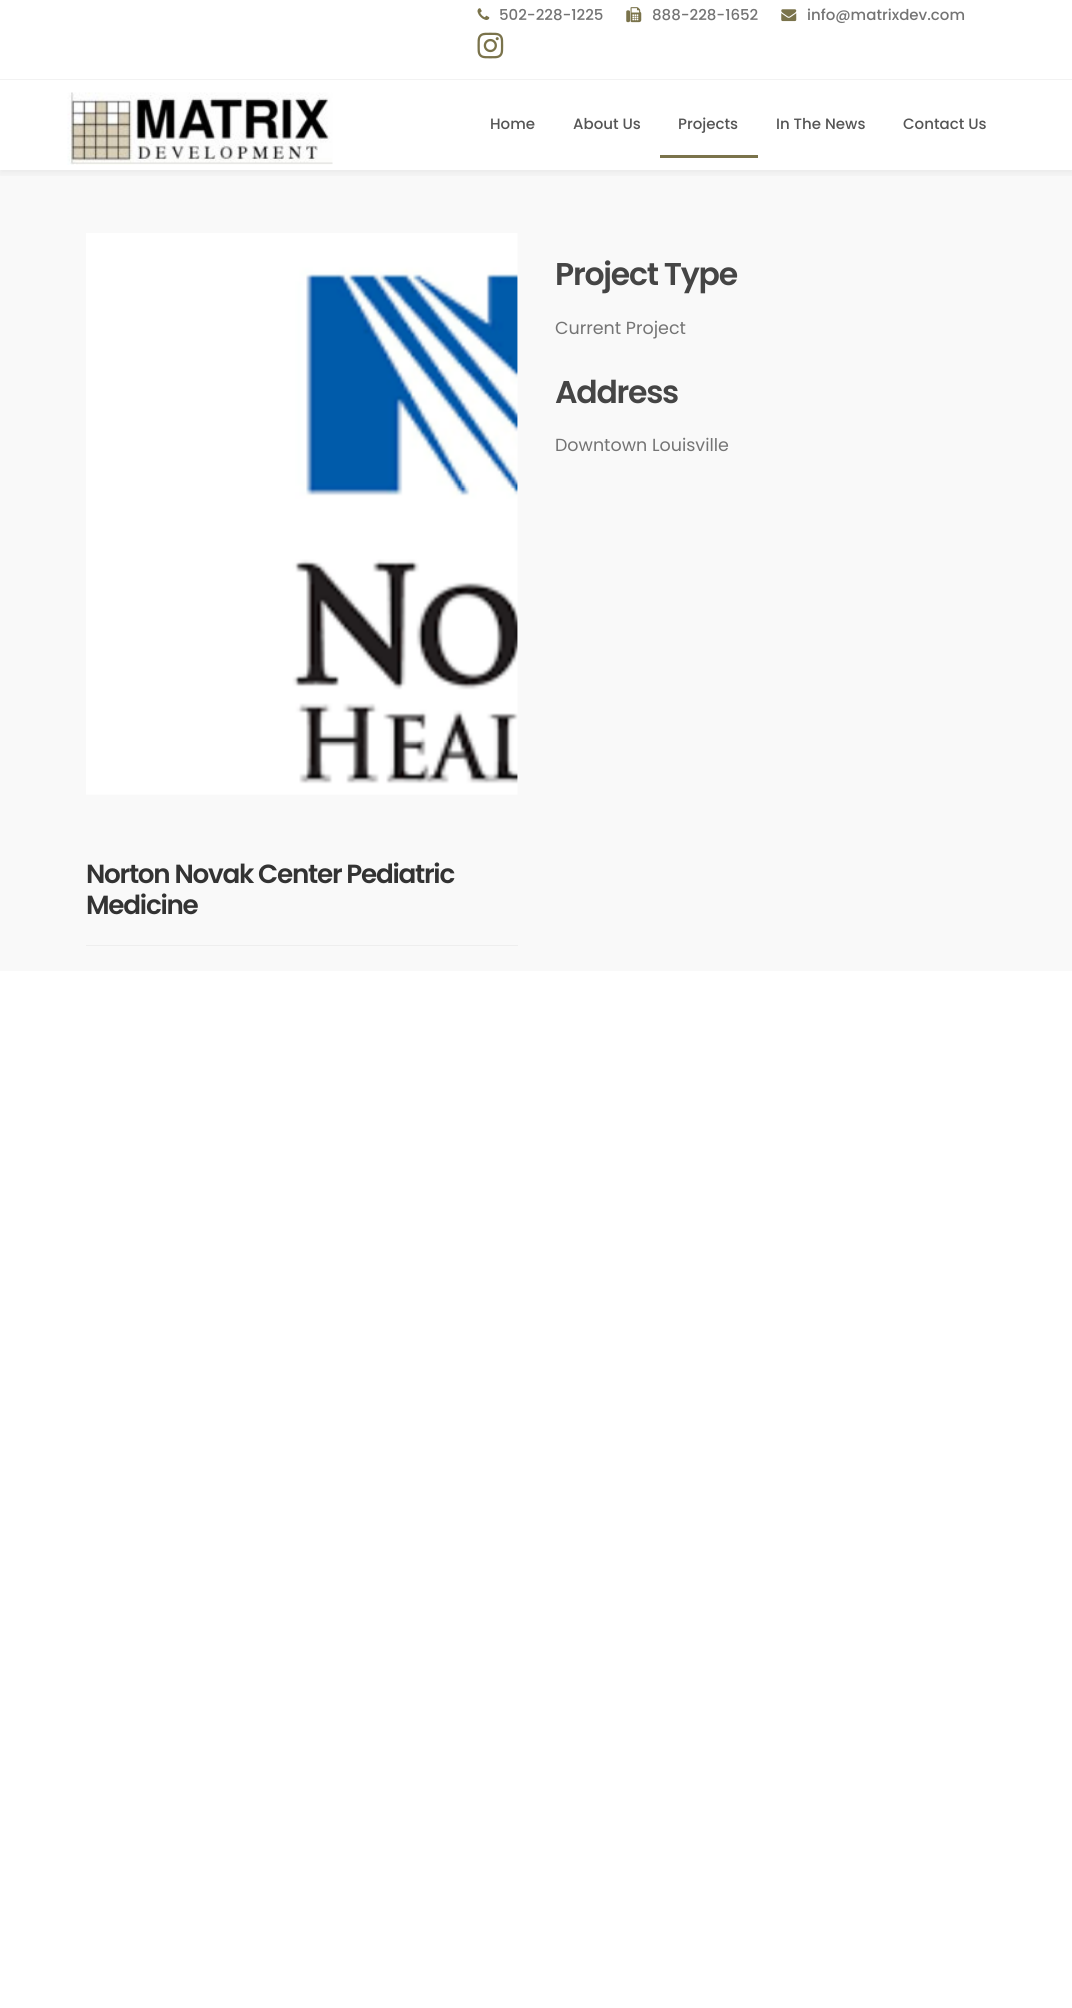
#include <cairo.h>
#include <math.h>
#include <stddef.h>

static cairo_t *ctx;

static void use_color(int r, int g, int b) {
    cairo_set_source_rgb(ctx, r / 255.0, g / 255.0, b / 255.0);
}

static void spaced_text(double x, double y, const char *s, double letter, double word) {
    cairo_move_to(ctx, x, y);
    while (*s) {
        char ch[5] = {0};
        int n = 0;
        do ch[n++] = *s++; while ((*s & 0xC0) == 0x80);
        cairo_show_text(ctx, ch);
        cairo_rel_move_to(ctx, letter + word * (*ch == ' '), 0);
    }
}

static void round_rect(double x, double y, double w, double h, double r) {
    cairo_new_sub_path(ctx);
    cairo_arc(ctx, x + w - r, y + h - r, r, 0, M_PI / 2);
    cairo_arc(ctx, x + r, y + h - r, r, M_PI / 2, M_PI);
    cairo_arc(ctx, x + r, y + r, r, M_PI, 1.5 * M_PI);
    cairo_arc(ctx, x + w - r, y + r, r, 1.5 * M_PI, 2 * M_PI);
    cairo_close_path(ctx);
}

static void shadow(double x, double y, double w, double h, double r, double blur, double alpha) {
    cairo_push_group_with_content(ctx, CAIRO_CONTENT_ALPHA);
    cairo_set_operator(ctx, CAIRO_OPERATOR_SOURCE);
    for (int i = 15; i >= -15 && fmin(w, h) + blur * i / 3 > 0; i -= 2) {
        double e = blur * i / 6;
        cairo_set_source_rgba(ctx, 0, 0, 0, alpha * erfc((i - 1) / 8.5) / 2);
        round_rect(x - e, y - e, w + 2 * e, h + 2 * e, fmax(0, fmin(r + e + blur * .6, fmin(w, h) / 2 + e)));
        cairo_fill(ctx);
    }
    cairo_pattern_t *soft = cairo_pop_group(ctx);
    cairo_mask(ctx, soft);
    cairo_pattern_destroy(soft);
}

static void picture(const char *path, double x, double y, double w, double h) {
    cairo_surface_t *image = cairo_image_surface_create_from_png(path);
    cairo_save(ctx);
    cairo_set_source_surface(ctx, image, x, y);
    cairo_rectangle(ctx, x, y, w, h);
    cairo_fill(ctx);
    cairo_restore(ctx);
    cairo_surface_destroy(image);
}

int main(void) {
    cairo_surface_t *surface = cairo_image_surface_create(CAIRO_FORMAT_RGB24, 1072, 2008);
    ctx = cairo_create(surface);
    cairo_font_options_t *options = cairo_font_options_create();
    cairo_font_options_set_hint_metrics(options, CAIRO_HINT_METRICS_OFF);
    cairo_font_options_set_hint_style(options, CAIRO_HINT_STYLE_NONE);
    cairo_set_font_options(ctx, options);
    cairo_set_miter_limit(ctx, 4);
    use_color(255, 255, 255);
    cairo_paint(ctx);
    use_color(242, 242, 242);
    cairo_rectangle(ctx, 0, 79, 1072, 1);
    cairo_fill(ctx);
    picture("img1.png", 477, 8, 13, 12);
    cairo_select_font_face(ctx, "Poppins Medium", CAIRO_FONT_SLANT_NORMAL, CAIRO_FONT_WEIGHT_NORMAL);
    cairo_set_font_size(ctx, 15);
    use_color(116, 116, 116);
    cairo_move_to(ctx, 499, 20);
    cairo_show_text(ctx, "502-228-1225");
    picture("img2.png", 626, 7, 16, 16);
    cairo_move_to(ctx, 652, 20);
    cairo_show_text(ctx, "888-228-1652");
    picture("img3.png", 781, 9, 16, 13);
    cairo_move_to(ctx, 807, 20);
    cairo_show_text(ctx, "info@matrixdev.com");
    picture("img4.png", 477, 32, 27, 27);
    use_color(249, 249, 249);
    cairo_rectangle(ctx, 0, 170, 1072, 801);
    cairo_fill(ctx);
    cairo_save(ctx);
    cairo_rectangle(ctx, 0, 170, 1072, 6);
    cairo_clip(ctx);
    use_color(0, 0, 0);
    shadow(0, 83, 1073, 90, 0, 5, 0.07);
    cairo_restore(ctx);
    picture("img5.png", 67, 92, 266, 73);
    use_color(85, 85, 85);
    cairo_move_to(ctx, 490, 129);
    cairo_show_text(ctx, "Home");
    cairo_move_to(ctx, 573, 129);
    cairo_show_text(ctx, "About Us");
    use_color(122, 115, 75);
    cairo_rectangle(ctx, 660, 155, 98, 3);
    cairo_fill(ctx);
    use_color(85, 85, 85);
    cairo_move_to(ctx, 678, 129);
    cairo_show_text(ctx, "Projects");
    cairo_move_to(ctx, 776, 129);
    cairo_show_text(ctx, "In The News");
    cairo_move_to(ctx, 903, 129);
    cairo_show_text(ctx, "Contact Us");
    cairo_select_font_face(ctx, "Poppins SemiBold", CAIRO_FONT_SLANT_NORMAL, CAIRO_FONT_WEIGHT_NORMAL);
    cairo_set_font_size(ctx, 31.5);
    use_color(69, 69, 69);
    spaced_text(555, 285, "Project Type", -1.25, 0);
    cairo_select_font_face(ctx, "Poppins", CAIRO_FONT_SLANT_NORMAL, CAIRO_FONT_WEIGHT_NORMAL);
    cairo_set_font_size(ctx, 17.5);
    use_color(116, 116, 116);
    cairo_move_to(ctx, 555, 334);
    cairo_show_text(ctx, "Current Project");
    cairo_select_font_face(ctx, "Poppins SemiBold", CAIRO_FONT_SLANT_NORMAL, CAIRO_FONT_WEIGHT_NORMAL);
    cairo_set_font_size(ctx, 31.5);
    use_color(69, 69, 69);
    spaced_text(555, 403, "Address", -1.25, 0);
    cairo_select_font_face(ctx, "Poppins", CAIRO_FONT_SLANT_NORMAL, CAIRO_FONT_WEIGHT_NORMAL);
    cairo_set_font_size(ctx, 17.5);
    use_color(116, 116, 116);
    cairo_move_to(ctx, 555, 451);
    cairo_show_text(ctx, "Downtown Louisville");
    picture("img6.png", 86, 233, 432, 562);
    cairo_select_font_face(ctx, "Poppins SemiBold", CAIRO_FONT_SLANT_NORMAL, CAIRO_FONT_WEIGHT_NORMAL);
    cairo_set_font_size(ctx, 26.25);
    use_color(51, 51, 51);
    spaced_text(86, 883, "Norton Novak Center Pediatric", -1.25, 0);
    spaced_text(86, 914, "Medicine", -1.25, 0);
    use_color(238, 238, 238);
    cairo_rectangle(ctx, 86, 945, 432, 1);
    cairo_fill(ctx);
    cairo_surface_write_to_png(surface, "result.png");
    cairo_font_options_destroy(options);
    cairo_destroy(ctx);
    cairo_surface_destroy(surface);
    return 0;
}
